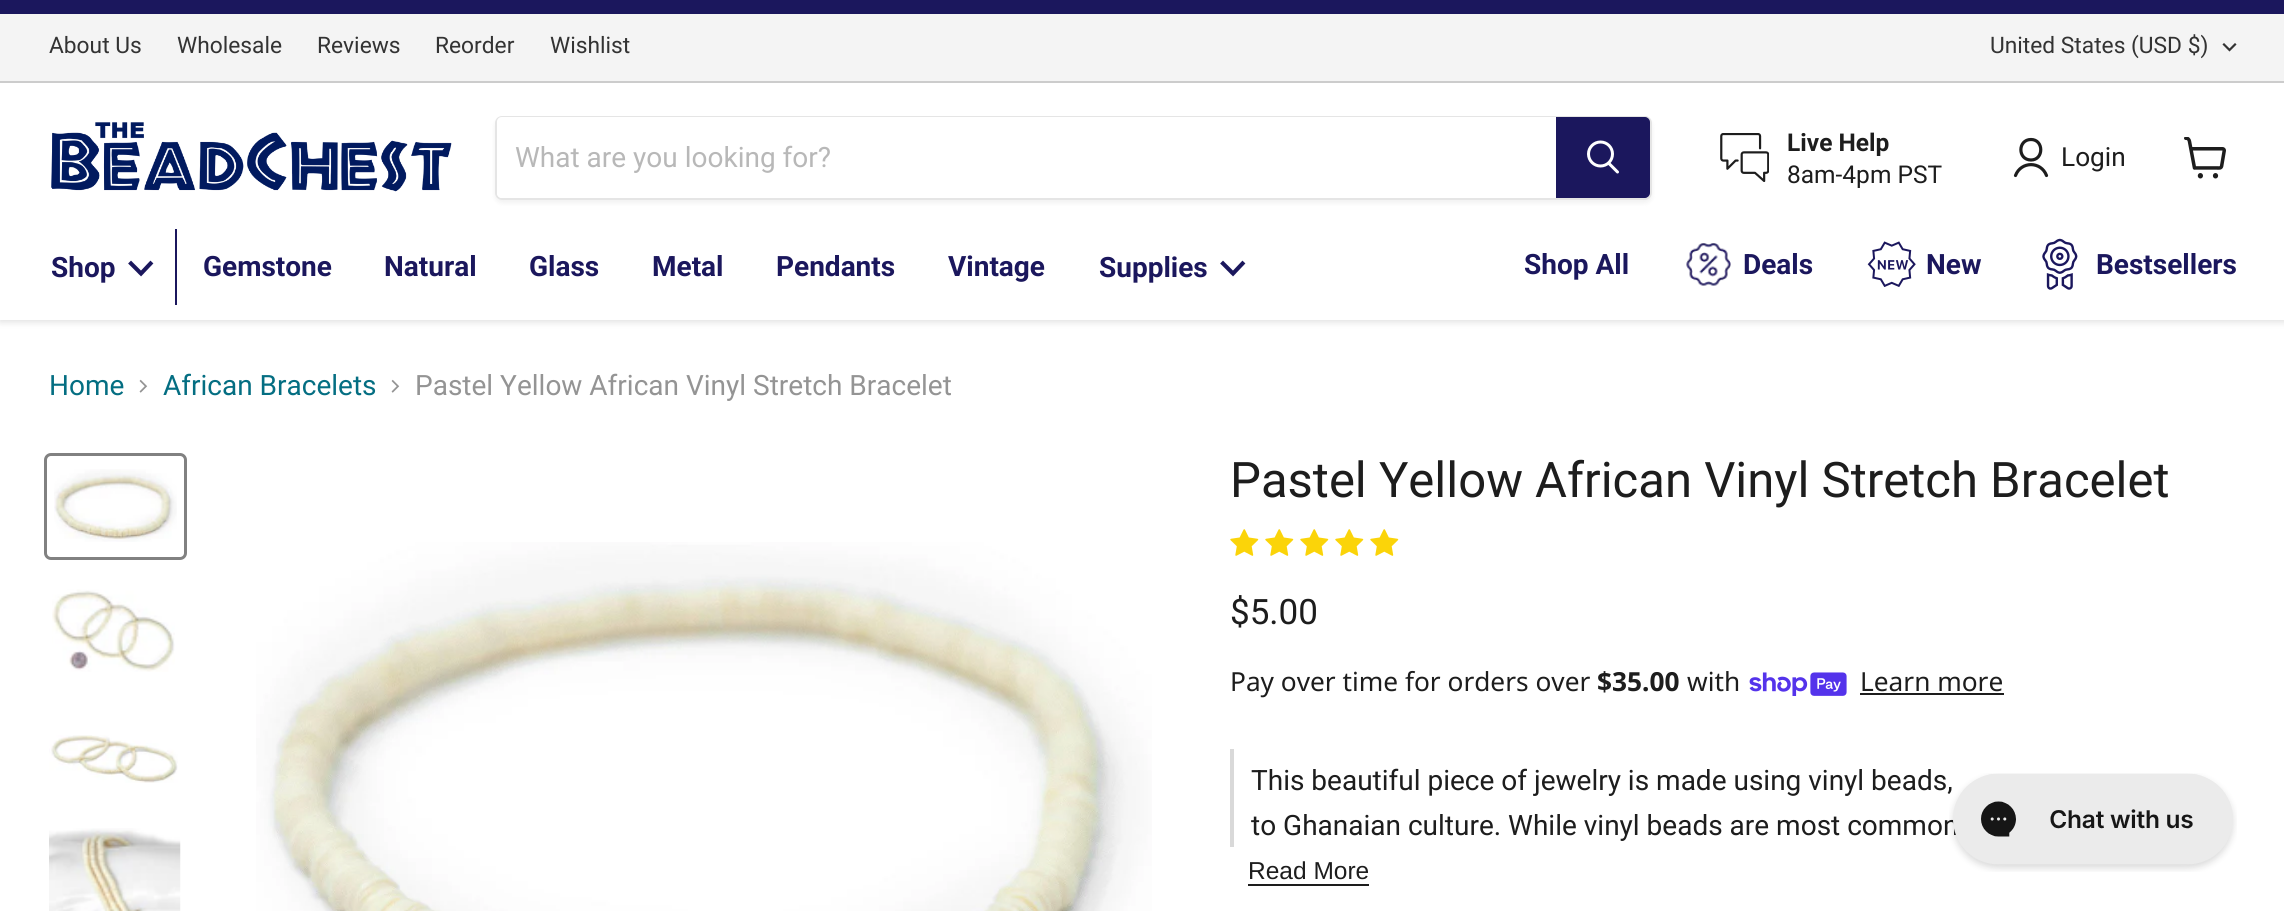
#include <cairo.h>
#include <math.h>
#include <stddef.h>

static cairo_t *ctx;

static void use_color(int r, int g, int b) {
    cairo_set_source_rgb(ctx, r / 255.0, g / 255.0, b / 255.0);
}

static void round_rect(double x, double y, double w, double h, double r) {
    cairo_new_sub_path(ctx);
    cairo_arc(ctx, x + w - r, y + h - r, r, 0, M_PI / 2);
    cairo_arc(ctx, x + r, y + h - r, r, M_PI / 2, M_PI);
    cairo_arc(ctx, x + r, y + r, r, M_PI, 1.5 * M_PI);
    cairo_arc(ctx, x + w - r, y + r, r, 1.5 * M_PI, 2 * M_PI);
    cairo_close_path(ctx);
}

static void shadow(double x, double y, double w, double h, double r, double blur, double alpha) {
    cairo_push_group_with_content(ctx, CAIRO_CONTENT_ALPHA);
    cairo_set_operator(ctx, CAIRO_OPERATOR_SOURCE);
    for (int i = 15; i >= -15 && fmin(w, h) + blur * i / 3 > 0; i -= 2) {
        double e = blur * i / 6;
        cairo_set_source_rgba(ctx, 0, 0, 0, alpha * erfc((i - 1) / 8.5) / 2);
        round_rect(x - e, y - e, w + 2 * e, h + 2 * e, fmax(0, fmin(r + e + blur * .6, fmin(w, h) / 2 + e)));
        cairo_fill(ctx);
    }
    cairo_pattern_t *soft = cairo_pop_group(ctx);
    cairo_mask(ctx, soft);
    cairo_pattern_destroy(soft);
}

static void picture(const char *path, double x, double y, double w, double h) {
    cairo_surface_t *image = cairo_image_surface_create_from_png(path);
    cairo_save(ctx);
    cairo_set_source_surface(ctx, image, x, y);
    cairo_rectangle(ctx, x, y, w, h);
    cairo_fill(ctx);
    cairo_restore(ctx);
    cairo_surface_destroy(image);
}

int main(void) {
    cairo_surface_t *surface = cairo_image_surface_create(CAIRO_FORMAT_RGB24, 2284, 911);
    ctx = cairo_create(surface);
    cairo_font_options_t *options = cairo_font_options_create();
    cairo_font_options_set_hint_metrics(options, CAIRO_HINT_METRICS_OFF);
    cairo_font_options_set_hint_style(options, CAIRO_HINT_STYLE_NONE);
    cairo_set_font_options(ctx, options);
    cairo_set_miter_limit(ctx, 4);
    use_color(255, 255, 255);
    cairo_paint(ctx);
    use_color(27, 23, 93);
    cairo_rectangle(ctx, 0, 0, 2284, 14);
    cairo_fill(ctx);
    use_color(128, 128, 128);
    shadow(0, 84, 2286, 238, 0, 3.5, 0.25);
    use_color(244, 244, 244);
    cairo_rectangle(ctx, 0, 14, 2284, 67);
    cairo_fill(ctx);
    use_color(204, 204, 204);
    cairo_rectangle(ctx, 0, 81, 2284, 2);
    cairo_fill(ctx);
    cairo_select_font_face(ctx, "Roboto", CAIRO_FONT_SLANT_NORMAL, CAIRO_FONT_WEIGHT_NORMAL);
    cairo_set_font_size(ctx, 22.75);
    use_color(51, 51, 51);
    cairo_move_to(ctx, 49, 53);
    cairo_show_text(ctx, "About Us");
    cairo_move_to(ctx, 177, 53);
    cairo_show_text(ctx, "Wholesale");
    cairo_move_to(ctx, 317, 53);
    cairo_show_text(ctx, "Reviews");
    cairo_move_to(ctx, 435, 53);
    cairo_show_text(ctx, "Reorder");
    cairo_move_to(ctx, 550, 53);
    cairo_show_text(ctx, "Wishlist");
    cairo_move_to(ctx, 1990, 53);
    cairo_show_text(ctx, "United States (USD $)");
    cairo_new_path(ctx);
    cairo_move_to(ctx, 2229.5, 50);
    cairo_line_to(ctx, 2235, 44.5);
    cairo_move_to(ctx, 2229.5, 50);
    cairo_line_to(ctx, 2224, 44.5);
    cairo_set_line_width(ctx, 2.2);
    cairo_set_line_cap(ctx, CAIRO_LINE_CAP_SQUARE);
    cairo_stroke(ctx);
    use_color(255, 255, 255);
    cairo_rectangle(ctx, 0, 83, 2284, 237);
    cairo_fill(ctx);
    picture("img1.png", 51, 122, 401, 70);
    cairo_save(ctx);
    cairo_set_fill_rule(ctx, CAIRO_FILL_RULE_EVEN_ODD);
    cairo_new_path(ctx);
    cairo_move_to(ctx, 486, 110);
    cairo_line_to(ctx, 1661, 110);
    cairo_line_to(ctx, 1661, 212);
    cairo_line_to(ctx, 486, 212);
    cairo_close_path(ctx);
    cairo_move_to(ctx, 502, 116);
    cairo_line_to(ctx, 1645, 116);
    cairo_curve_to(ctx, 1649, 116, 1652, 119, 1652, 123);
    cairo_line_to(ctx, 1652, 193);
    cairo_curve_to(ctx, 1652, 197, 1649, 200, 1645, 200);
    cairo_line_to(ctx, 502, 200);
    cairo_curve_to(ctx, 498, 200, 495, 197, 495, 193);
    cairo_line_to(ctx, 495, 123);
    cairo_curve_to(ctx, 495, 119, 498, 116, 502, 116);
    cairo_close_path(ctx);
    cairo_clip(ctx);
    use_color(128, 128, 128);
    shadow(495, 119, 1157, 84, 7, 2.5, 0.11);
    cairo_restore(ctx);
    round_rect(496, 117, 1155, 82, 6);
    cairo_set_source_rgba(ctx, 0.502, 0.502, 0.502, 0.2);
    cairo_set_line_width(ctx, 2);
    cairo_set_line_cap(ctx, CAIRO_LINE_CAP_BUTT);
    cairo_stroke(ctx);
    use_color(255, 255, 255);
    cairo_new_path(ctx);
    cairo_move_to(ctx, 502, 117);
    cairo_line_to(ctx, 1556, 117);
    cairo_line_to(ctx, 1556, 198);
    cairo_line_to(ctx, 502, 198);
    cairo_curve_to(ctx, 499, 198, 497, 196, 497, 193);
    cairo_line_to(ctx, 497, 122);
    cairo_curve_to(ctx, 497, 119, 499, 117, 502, 117);
    cairo_close_path(ctx);
    cairo_fill(ctx);
    cairo_set_font_size(ctx, 28);
    use_color(184, 184, 184);
    cairo_move_to(ctx, 515, 167);
    cairo_show_text(ctx, "What are you looking for?");
    use_color(27, 23, 93);
    cairo_new_path(ctx);
    cairo_move_to(ctx, 1557, 118);
    cairo_line_to(ctx, 1645, 118);
    cairo_curve_to(ctx, 1647, 118, 1649, 120, 1649, 122);
    cairo_line_to(ctx, 1649, 193);
    cairo_curve_to(ctx, 1649, 195, 1647, 197, 1645, 197);
    cairo_line_to(ctx, 1557, 197);
    cairo_close_path(ctx);
    cairo_fill_preserve(ctx);
    cairo_stroke(ctx);
    cairo_new_path(ctx);
    cairo_move_to(ctx, 1617.5, 172);
    cairo_line_to(ctx, 1609, 163.5);
    use_color(255, 255, 255);
    cairo_set_line_width(ctx, 3);
    cairo_set_line_cap(ctx, CAIRO_LINE_CAP_ROUND);
    cairo_stroke(ctx);
    cairo_arc(ctx, 1600.5, 154, 12, 0, 2 * M_PI);
    cairo_set_line_cap(ctx, CAIRO_LINE_CAP_BUTT);
    cairo_stroke(ctx);
    picture("img2.png", 1720, 133, 49, 49);
    cairo_select_font_face(ctx, "Roboto", CAIRO_FONT_SLANT_NORMAL, CAIRO_FONT_WEIGHT_BOLD);
    cairo_set_font_size(ctx, 24.5);
    use_color(29, 29, 29);
    cairo_move_to(ctx, 1787, 151);
    cairo_show_text(ctx, "Live Help");
    cairo_select_font_face(ctx, "Roboto", CAIRO_FONT_SLANT_NORMAL, CAIRO_FONT_WEIGHT_NORMAL);
    cairo_move_to(ctx, 1787, 183);
    cairo_show_text(ctx, "8am-4pm PST");
    cairo_new_path(ctx);
    cairo_move_to(ctx, 2031, 160);
    cairo_curve_to(ctx, 2044, 160, 2044, 139.5, 2031, 139.5);
    cairo_curve_to(ctx, 2017.5, 139.5, 2017.5, 160, 2031, 160);
    cairo_close_path(ctx);
    cairo_move_to(ctx, 2046.5, 175.5);
    cairo_curve_to(ctx, 2041, 161, 2021, 161, 2015.5, 175.5);
    cairo_set_line_width(ctx, 3.2);
    cairo_set_line_cap(ctx, CAIRO_LINE_CAP_ROUND);
    cairo_set_line_join(ctx, CAIRO_LINE_JOIN_ROUND);
    cairo_stroke(ctx);
    cairo_set_font_size(ctx, 26.25);
    cairo_move_to(ctx, 2061, 166);
    cairo_show_text(ctx, "Login");
    picture("img3.png", 2184, 137, 42, 42);
    use_color(27, 23, 93);
    cairo_rectangle(ctx, 175, 229, 2, 77);
    cairo_fill(ctx);
    use_color(255, 255, 255);
    cairo_rectangle(ctx, 175, 305, 2, 1);
    cairo_fill(ctx);
    cairo_select_font_face(ctx, "Roboto", CAIRO_FONT_SLANT_NORMAL, CAIRO_FONT_WEIGHT_BOLD);
    cairo_set_font_size(ctx, 28);
    use_color(27, 23, 93);
    cairo_move_to(ctx, 51, 277);
    cairo_show_text(ctx, "Shop");
    cairo_new_path(ctx);
    cairo_move_to(ctx, 141, 273.5);
    cairo_line_to(ctx, 150.5, 263.5);
    cairo_move_to(ctx, 141, 273.5);
    cairo_line_to(ctx, 131, 263.5);
    cairo_set_line_width(ctx, 4.1);
    cairo_set_line_cap(ctx, CAIRO_LINE_CAP_SQUARE);
    cairo_set_line_join(ctx, CAIRO_LINE_JOIN_MITER);
    cairo_stroke(ctx);
    cairo_move_to(ctx, 203, 276);
    cairo_show_text(ctx, "Gemstone");
    cairo_move_to(ctx, 384, 276);
    cairo_show_text(ctx, "Natural");
    cairo_move_to(ctx, 529, 276);
    cairo_show_text(ctx, "Glass");
    cairo_move_to(ctx, 652, 276);
    cairo_show_text(ctx, "Metal");
    cairo_move_to(ctx, 776, 276);
    cairo_show_text(ctx, "Pendants");
    cairo_move_to(ctx, 948, 276);
    cairo_show_text(ctx, "Vintage");
    cairo_move_to(ctx, 1099, 277);
    cairo_show_text(ctx, "Supplies");
    cairo_new_path(ctx);
    cairo_move_to(ctx, 1233, 273.5);
    cairo_line_to(ctx, 1242.5, 263.5);
    cairo_move_to(ctx, 1233, 273.5);
    cairo_line_to(ctx, 1223, 263.5);
    cairo_stroke(ctx);
    cairo_move_to(ctx, 1524, 274);
    cairo_show_text(ctx, "Shop All");
    picture("img4.png", 1686, 243, 45, 43);
    cairo_move_to(ctx, 1743, 274);
    cairo_show_text(ctx, "Deals");
    picture("img5.png", 1867, 241, 49, 46);
    cairo_move_to(ctx, 1926, 274);
    cairo_show_text(ctx, "New");
    picture("img6.png", 2042, 238, 36, 52);
    cairo_move_to(ctx, 2096, 274);
    cairo_show_text(ctx, "Bestsellers");
    cairo_select_font_face(ctx, "Roboto", CAIRO_FONT_SLANT_NORMAL, CAIRO_FONT_WEIGHT_NORMAL);
    use_color(4, 110, 130);
    cairo_move_to(ctx, 49, 395);
    cairo_show_text(ctx, "Home");
    picture("img7.png", 139, 379, 9, 14);
    cairo_move_to(ctx, 163, 395);
    cairo_show_text(ctx, "African Bracelets");
    picture("img8.png", 391, 379, 9, 14);
    use_color(148, 148, 148);
    cairo_move_to(ctx, 415, 395);
    cairo_show_text(ctx, "Pastel Yellow African Vinyl Stretch Bracelet");
    round_rect(45.5, 454.5, 140, 104, 5.5);
    use_color(129, 129, 129);
    cairo_set_line_width(ctx, 3);
    cairo_set_line_cap(ctx, CAIRO_LINE_CAP_BUTT);
    cairo_stroke(ctx);
    picture("img9.png", 54, 469, 123, 73);
    picture("img10.png", 52, 589, 123, 83);
    picture("img11.png", 49, 735, 129, 48);
    picture("img12.png", 49, 828, 132, 83);
    picture("img13.png", 256, 542, 896, 369);
    cairo_set_font_size(ctx, 49);
    use_color(29, 29, 29);
    cairo_move_to(ctx, 1230, 497);
    cairo_show_text(ctx, "Pastel Yellow African Vinyl Stretch Bracelet");
    picture("img14.png", 1230, 529, 29, 27);
    picture("img14.png", 1265, 529, 29, 27);
    picture("img14.png", 1300, 529, 29, 27);
    picture("img14.png", 1335, 529, 29, 27);
    picture("img14.png", 1370, 529, 29, 27);
    cairo_set_font_size(ctx, 35);
    cairo_move_to(ctx, 1230, 624);
    cairo_show_text(ctx, "$5.00");
    cairo_select_font_face(ctx, "Noto Sans", CAIRO_FONT_SLANT_NORMAL, CAIRO_FONT_WEIGHT_NORMAL);
    cairo_set_font_size(ctx, 26.25);
    cairo_move_to(ctx, 1230, 691);
    cairo_show_text(ctx, "Pay over time for orders over");
    cairo_select_font_face(ctx, "Noto Sans", CAIRO_FONT_SLANT_NORMAL, CAIRO_FONT_WEIGHT_BOLD);
    cairo_move_to(ctx, 1597, 691);
    cairo_show_text(ctx, "$35.00");
    cairo_select_font_face(ctx, "Noto Sans", CAIRO_FONT_SLANT_NORMAL, CAIRO_FONT_WEIGHT_NORMAL);
    cairo_move_to(ctx, 1687, 691);
    cairo_show_text(ctx, "with");
    picture("img15.png", 1749, 672, 98, 24);
    cairo_move_to(ctx, 1860, 691);
    cairo_show_text(ctx, "Learn more");
    cairo_rectangle(ctx, 1860, 693, 144, 2);
    cairo_fill(ctx);
    use_color(217, 217, 217);
    cairo_rectangle(ctx, 1230, 749, 4, 98);
    cairo_fill(ctx);
    cairo_select_font_face(ctx, "Roboto", CAIRO_FONT_SLANT_NORMAL, CAIRO_FONT_WEIGHT_NORMAL);
    cairo_set_font_size(ctx, 28);
    use_color(29, 29, 29);
    cairo_move_to(ctx, 1251, 790);
    cairo_show_text(ctx, "This beautiful piece of jewelry is made using vinyl beads,");
    cairo_move_to(ctx, 1251, 835);
    cairo_show_text(ctx, "to Ghanaian culture. While vinyl beads are most common");
    cairo_rectangle(ctx, 1248, 884, 121, 2);
    cairo_fill(ctx);
    cairo_select_font_face(ctx, "Liberation Sans", CAIRO_FONT_SLANT_NORMAL, CAIRO_FONT_WEIGHT_NORMAL);
    cairo_set_font_size(ctx, 24.5);
    cairo_move_to(ctx, 1248, 879);
    cairo_show_text(ctx, "Read More");
    picture("img16.png", 1949, 773, 288, 99);
    cairo_surface_write_to_png(surface, "result.png");
    cairo_font_options_destroy(options);
    cairo_destroy(ctx);
    cairo_surface_destroy(surface);
    return 0;
}
